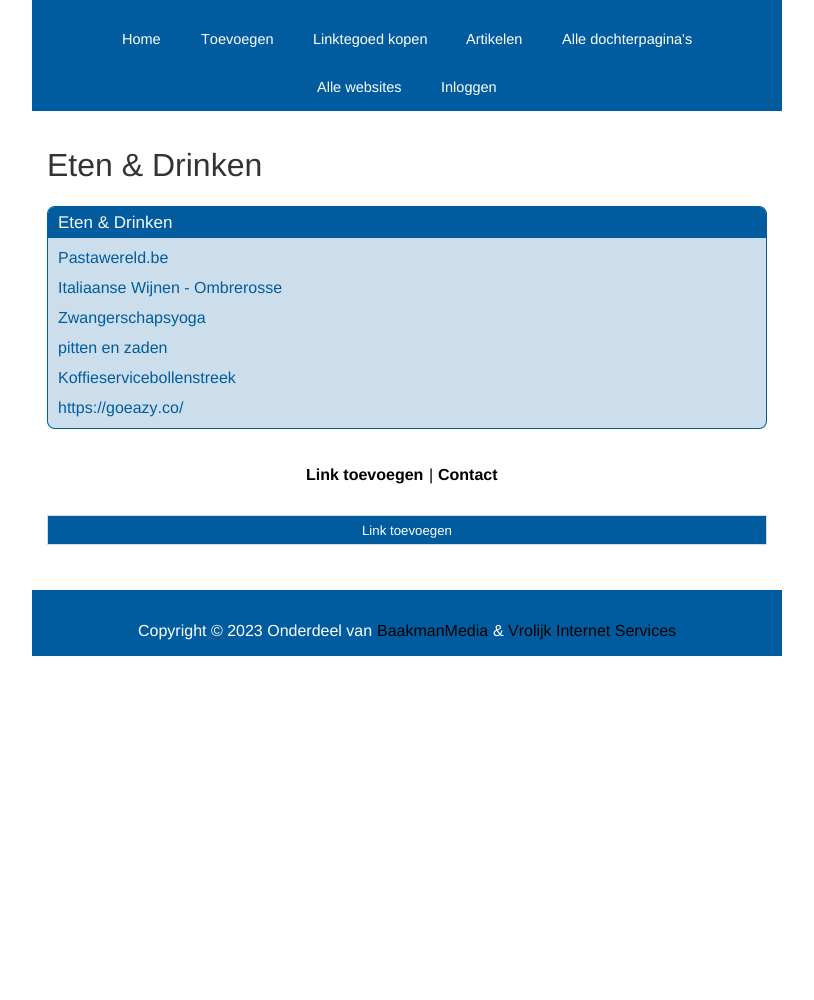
#include <cairo.h>
#include <math.h>
#include <stddef.h>

static cairo_t *ctx;

static void use_color(int r, int g, int b) {
    cairo_set_source_rgb(ctx, r / 255.0, g / 255.0, b / 255.0);
}

static void round_rect(double x, double y, double w, double h, double r) {
    cairo_new_sub_path(ctx);
    cairo_arc(ctx, x + w - r, y + h - r, r, 0, M_PI / 2);
    cairo_arc(ctx, x + r, y + h - r, r, M_PI / 2, M_PI);
    cairo_arc(ctx, x + r, y + r, r, M_PI, 1.5 * M_PI);
    cairo_arc(ctx, x + w - r, y + r, r, 1.5 * M_PI, 2 * M_PI);
    cairo_close_path(ctx);
}

int main(void) {
    cairo_surface_t *surface = cairo_image_surface_create(CAIRO_FORMAT_RGB24, 814, 1000);
    ctx = cairo_create(surface);
    cairo_font_options_t *options = cairo_font_options_create();
    cairo_font_options_set_hint_metrics(options, CAIRO_HINT_METRICS_OFF);
    cairo_font_options_set_hint_style(options, CAIRO_HINT_STYLE_NONE);
    cairo_set_font_options(ctx, options);
    cairo_set_miter_limit(ctx, 4);
    use_color(255, 255, 255);
    cairo_paint(ctx);
    use_color(0, 92, 158);
    cairo_rectangle(ctx, 32, 0, 750, 111);
    cairo_fill(ctx);
    cairo_select_font_face(ctx, "Liberation Sans", CAIRO_FONT_SLANT_NORMAL, CAIRO_FONT_WEIGHT_NORMAL);
    cairo_set_font_size(ctx, 14.5);
    use_color(255, 255, 255);
    cairo_move_to(ctx, 122, 44);
    cairo_show_text(ctx, "Home");
    cairo_move_to(ctx, 201, 44);
    cairo_show_text(ctx, "Toevoegen");
    cairo_move_to(ctx, 313, 44);
    cairo_show_text(ctx, "Linktegoed kopen");
    cairo_move_to(ctx, 466, 44);
    cairo_show_text(ctx, "Artikelen");
    cairo_move_to(ctx, 562, 44);
    cairo_show_text(ctx, "Alle dochterpagina's");
    cairo_move_to(ctx, 317, 92);
    cairo_show_text(ctx, "Alle websites");
    cairo_move_to(ctx, 441, 92);
    cairo_show_text(ctx, "Inloggen");
    cairo_set_font_size(ctx, 32);
    use_color(51, 51, 51);
    cairo_move_to(ctx, 47, 176);
    cairo_show_text(ctx, "Eten & Drinken");
    use_color(204, 222, 236);
    round_rect(47.5, 206.5, 719, 222, 7.5);
    cairo_fill_preserve(ctx);
    use_color(0, 92, 158);
    cairo_set_line_width(ctx, 1);
    cairo_stroke(ctx);
    cairo_new_path(ctx);
    cairo_move_to(ctx, 55, 207);
    cairo_line_to(ctx, 759, 207);
    cairo_curve_to(ctx, 763, 207, 766, 210, 766, 214);
    cairo_line_to(ctx, 766, 238);
    cairo_line_to(ctx, 48, 238);
    cairo_line_to(ctx, 48, 214);
    cairo_curve_to(ctx, 48, 210, 51, 207, 55, 207);
    cairo_close_path(ctx);
    cairo_fill(ctx);
    cairo_set_font_size(ctx, 17);
    use_color(248, 248, 247);
    cairo_move_to(ctx, 58, 228);
    cairo_show_text(ctx, "Eten & Drinken");
    cairo_set_font_size(ctx, 16);
    use_color(0, 92, 158);
    cairo_move_to(ctx, 58, 263);
    cairo_show_text(ctx, "Pastawereld.be");
    cairo_move_to(ctx, 58, 293);
    cairo_show_text(ctx, "Italiaanse Wijnen - Ombrerosse");
    cairo_move_to(ctx, 58, 323);
    cairo_show_text(ctx, "Zwangerschapsyoga");
    cairo_move_to(ctx, 58, 353);
    cairo_show_text(ctx, "pitten en zaden");
    cairo_move_to(ctx, 58, 383);
    cairo_show_text(ctx, "Koffieservicebollenstreek");
    cairo_move_to(ctx, 58, 413);
    cairo_show_text(ctx, "https://goeazy.co/");
    cairo_select_font_face(ctx, "Liberation Sans", CAIRO_FONT_SLANT_NORMAL, CAIRO_FONT_WEIGHT_BOLD);
    use_color(0, 0, 0);
    cairo_move_to(ctx, 306, 480);
    cairo_show_text(ctx, "Link toevoegen");
    cairo_select_font_face(ctx, "Liberation Sans", CAIRO_FONT_SLANT_NORMAL, CAIRO_FONT_WEIGHT_NORMAL);
    cairo_move_to(ctx, 429, 480);
    cairo_show_text(ctx, "|");
    cairo_select_font_face(ctx, "Liberation Sans", CAIRO_FONT_SLANT_NORMAL, CAIRO_FONT_WEIGHT_BOLD);
    cairo_move_to(ctx, 438, 480);
    cairo_show_text(ctx, "Contact");
    use_color(0, 92, 158);
    cairo_rectangle(ctx, 47.5, 515.5, 719, 29);
    cairo_fill_preserve(ctx);
    use_color(218, 218, 218);
    cairo_stroke(ctx);
    cairo_select_font_face(ctx, "Liberation Sans", CAIRO_FONT_SLANT_NORMAL, CAIRO_FONT_WEIGHT_NORMAL);
    cairo_set_font_size(ctx, 13.25);
    use_color(255, 255, 255);
    cairo_move_to(ctx, 362, 535);
    cairo_show_text(ctx, "Link toevoegen");
    use_color(0, 92, 158);
    cairo_rectangle(ctx, 32, 590, 750, 66);
    cairo_fill(ctx);
    cairo_set_font_size(ctx, 16);
    use_color(255, 255, 255);
    cairo_move_to(ctx, 138, 636);
    cairo_show_text(ctx, "Copyright © 2023 Onderdeel van");
    use_color(0, 0, 0);
    cairo_move_to(ctx, 377, 636);
    cairo_show_text(ctx, "BaakmanMedia");
    use_color(255, 255, 255);
    cairo_move_to(ctx, 493, 636);
    cairo_show_text(ctx, "&");
    use_color(0, 0, 0);
    cairo_move_to(ctx, 508, 636);
    cairo_show_text(ctx, "Vrolijk Internet Services");
    cairo_surface_write_to_png(surface, "result.png");
    cairo_font_options_destroy(options);
    cairo_destroy(ctx);
    cairo_surface_destroy(surface);
    return 0;
}
